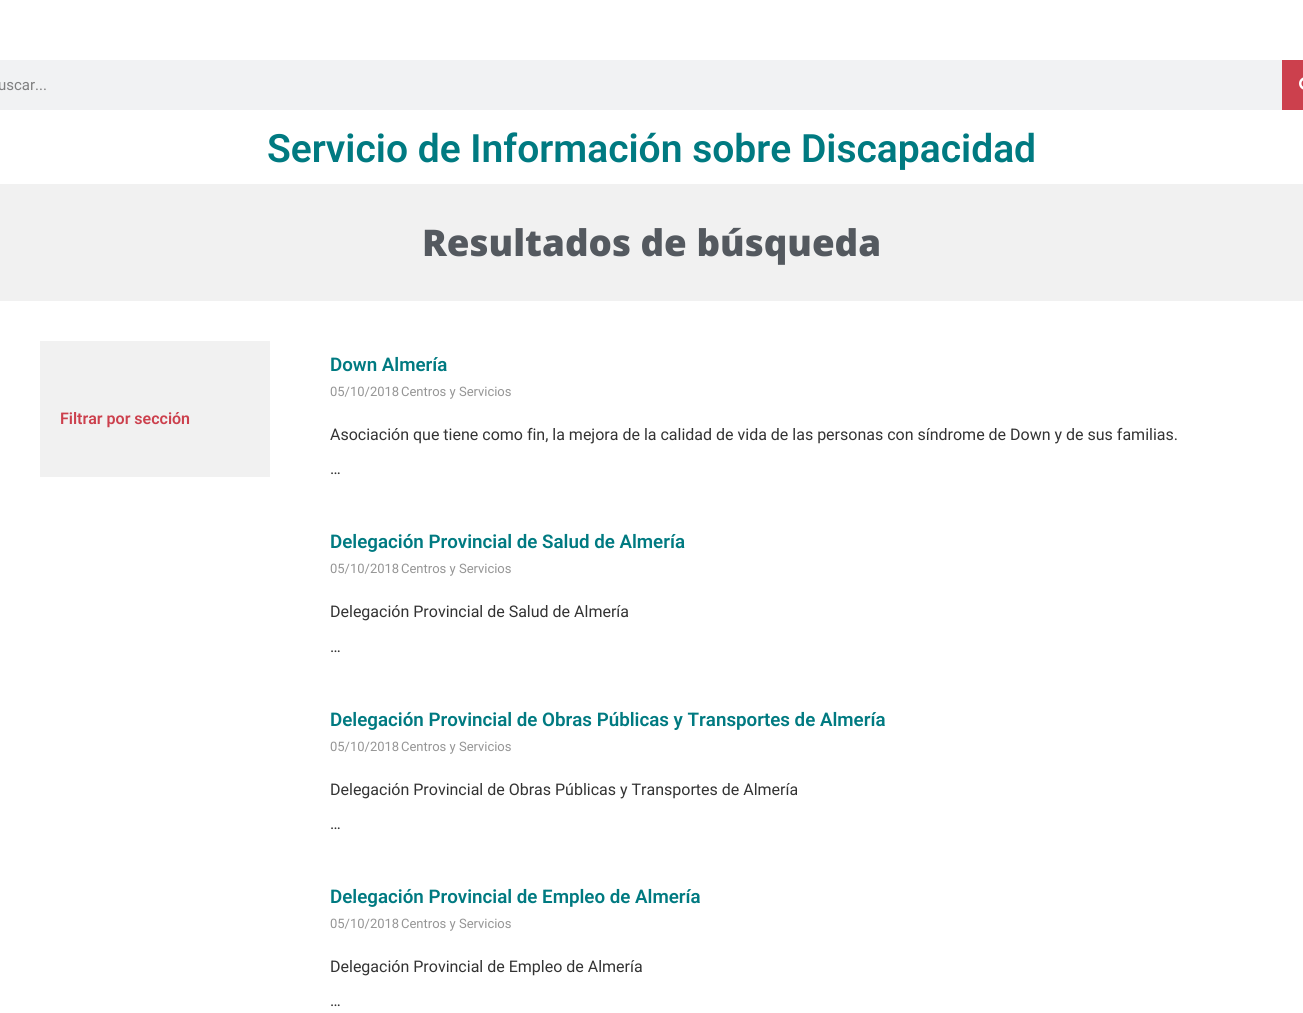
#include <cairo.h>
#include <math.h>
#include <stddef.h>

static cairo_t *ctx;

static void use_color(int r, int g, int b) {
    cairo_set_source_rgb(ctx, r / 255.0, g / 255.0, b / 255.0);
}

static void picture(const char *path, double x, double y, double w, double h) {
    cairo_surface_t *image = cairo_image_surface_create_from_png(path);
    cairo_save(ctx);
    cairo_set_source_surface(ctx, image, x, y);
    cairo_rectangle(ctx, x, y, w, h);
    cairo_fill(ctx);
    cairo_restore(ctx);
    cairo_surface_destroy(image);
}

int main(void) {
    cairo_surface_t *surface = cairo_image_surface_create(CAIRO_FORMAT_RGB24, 1303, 1013);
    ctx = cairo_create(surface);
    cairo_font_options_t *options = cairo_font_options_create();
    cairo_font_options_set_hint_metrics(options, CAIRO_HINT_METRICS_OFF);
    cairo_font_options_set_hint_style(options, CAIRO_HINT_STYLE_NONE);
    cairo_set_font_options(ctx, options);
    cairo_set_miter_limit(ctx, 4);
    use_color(255, 255, 255);
    cairo_paint(ctx);
    use_color(241, 242, 243);
    cairo_rectangle(ctx, 0, 60, 1282, 50);
    cairo_fill(ctx);
    cairo_select_font_face(ctx, "Roboto", CAIRO_FONT_SLANT_NORMAL, CAIRO_FONT_WEIGHT_NORMAL);
    cairo_set_font_size(ctx, 15);
    use_color(127, 127, 128);
    cairo_move_to(ctx, -2, 90);
    cairo_show_text(ctx, "uscar...");
    use_color(204, 64, 77);
    cairo_rectangle(ctx, 1282, 60, 21, 50);
    cairo_fill(ctx);
    picture("img1.png", 1299, 77, 4, 13);
    cairo_select_font_face(ctx, "Roboto SemiBold", CAIRO_FONT_SLANT_NORMAL, CAIRO_FONT_WEIGHT_NORMAL);
    cairo_set_font_size(ctx, 39);
    use_color(0, 122, 129);
    cairo_move_to(ctx, 267, 162);
    cairo_show_text(ctx, "Servicio de Información sobre Discapacidad");
    use_color(241, 241, 241);
    cairo_rectangle(ctx, 0, 184, 1303, 117);
    cairo_fill(ctx);
    cairo_select_font_face(ctx, "Open Sans ExtraBold", CAIRO_FONT_SLANT_NORMAL, CAIRO_FONT_WEIGHT_NORMAL);
    cairo_set_font_size(ctx, 36.75);
    use_color(84, 89, 95);
    cairo_move_to(ctx, 422, 256);
    cairo_show_text(ctx, "Resultados de búsqueda");
    use_color(241, 241, 241);
    cairo_rectangle(ctx, 40, 341, 230, 136);
    cairo_fill(ctx);
    cairo_select_font_face(ctx, "Roboto SemiBold", CAIRO_FONT_SLANT_NORMAL, CAIRO_FONT_WEIGHT_NORMAL);
    cairo_set_font_size(ctx, 16);
    use_color(204, 64, 77);
    cairo_move_to(ctx, 60, 424);
    cairo_show_text(ctx, "Filtrar por sección");
    cairo_set_font_size(ctx, 18.75);
    use_color(0, 122, 129);
    cairo_move_to(ctx, 330, 371);
    cairo_show_text(ctx, "Down Almería");
    cairo_select_font_face(ctx, "Roboto", CAIRO_FONT_SLANT_NORMAL, CAIRO_FONT_WEIGHT_NORMAL);
    cairo_set_font_size(ctx, 13);
    use_color(149, 149, 149);
    cairo_move_to(ctx, 330, 396);
    cairo_show_text(ctx, "05/10/2018");
    cairo_move_to(ctx, 401, 396);
    cairo_show_text(ctx, "Centros y Servicios");
    cairo_set_font_size(ctx, 16);
    use_color(51, 51, 51);
    cairo_move_to(ctx, 330, 440);
    cairo_show_text(ctx, "Asociación que tiene como fin, la mejora de la calidad de vida de las personas con síndrome de Down y de sus familias.");
    cairo_move_to(ctx, 330, 474);
    cairo_show_text(ctx, "…");
    cairo_select_font_face(ctx, "Roboto SemiBold", CAIRO_FONT_SLANT_NORMAL, CAIRO_FONT_WEIGHT_NORMAL);
    cairo_set_font_size(ctx, 18.75);
    use_color(0, 122, 129);
    cairo_move_to(ctx, 330, 548);
    cairo_show_text(ctx, "Delegación Provincial de Salud de Almería");
    cairo_select_font_face(ctx, "Roboto", CAIRO_FONT_SLANT_NORMAL, CAIRO_FONT_WEIGHT_NORMAL);
    cairo_set_font_size(ctx, 13);
    use_color(149, 149, 149);
    cairo_move_to(ctx, 330, 573);
    cairo_show_text(ctx, "05/10/2018");
    cairo_move_to(ctx, 401, 573);
    cairo_show_text(ctx, "Centros y Servicios");
    cairo_set_font_size(ctx, 16);
    use_color(51, 51, 51);
    cairo_move_to(ctx, 330, 617);
    cairo_show_text(ctx, "Delegación Provincial de Salud de Almería");
    cairo_move_to(ctx, 330, 652);
    cairo_show_text(ctx, "…");
    cairo_select_font_face(ctx, "Roboto SemiBold", CAIRO_FONT_SLANT_NORMAL, CAIRO_FONT_WEIGHT_NORMAL);
    cairo_set_font_size(ctx, 18.75);
    use_color(0, 122, 129);
    cairo_move_to(ctx, 330, 726);
    cairo_show_text(ctx, "Delegación Provincial de Obras Públicas y Transportes de Almería");
    cairo_select_font_face(ctx, "Roboto", CAIRO_FONT_SLANT_NORMAL, CAIRO_FONT_WEIGHT_NORMAL);
    cairo_set_font_size(ctx, 13);
    use_color(149, 149, 149);
    cairo_move_to(ctx, 330, 751);
    cairo_show_text(ctx, "05/10/2018");
    cairo_move_to(ctx, 401, 751);
    cairo_show_text(ctx, "Centros y Servicios");
    cairo_set_font_size(ctx, 16);
    use_color(51, 51, 51);
    cairo_move_to(ctx, 330, 795);
    cairo_show_text(ctx, "Delegación Provincial de Obras Públicas y Transportes de Almería");
    cairo_move_to(ctx, 330, 829);
    cairo_show_text(ctx, "…");
    cairo_select_font_face(ctx, "Roboto SemiBold", CAIRO_FONT_SLANT_NORMAL, CAIRO_FONT_WEIGHT_NORMAL);
    cairo_set_font_size(ctx, 18.75);
    use_color(0, 122, 129);
    cairo_move_to(ctx, 330, 903);
    cairo_show_text(ctx, "Delegación Provincial de Empleo de Almería");
    cairo_select_font_face(ctx, "Roboto", CAIRO_FONT_SLANT_NORMAL, CAIRO_FONT_WEIGHT_NORMAL);
    cairo_set_font_size(ctx, 13);
    use_color(149, 149, 149);
    cairo_move_to(ctx, 330, 928);
    cairo_show_text(ctx, "05/10/2018");
    cairo_move_to(ctx, 401, 928);
    cairo_show_text(ctx, "Centros y Servicios");
    cairo_set_font_size(ctx, 16);
    use_color(51, 51, 51);
    cairo_move_to(ctx, 330, 972);
    cairo_show_text(ctx, "Delegación Provincial de Empleo de Almería");
    cairo_move_to(ctx, 330, 1006);
    cairo_show_text(ctx, "…");
    cairo_surface_write_to_png(surface, "result.png");
    cairo_font_options_destroy(options);
    cairo_destroy(ctx);
    cairo_surface_destroy(surface);
    return 0;
}
